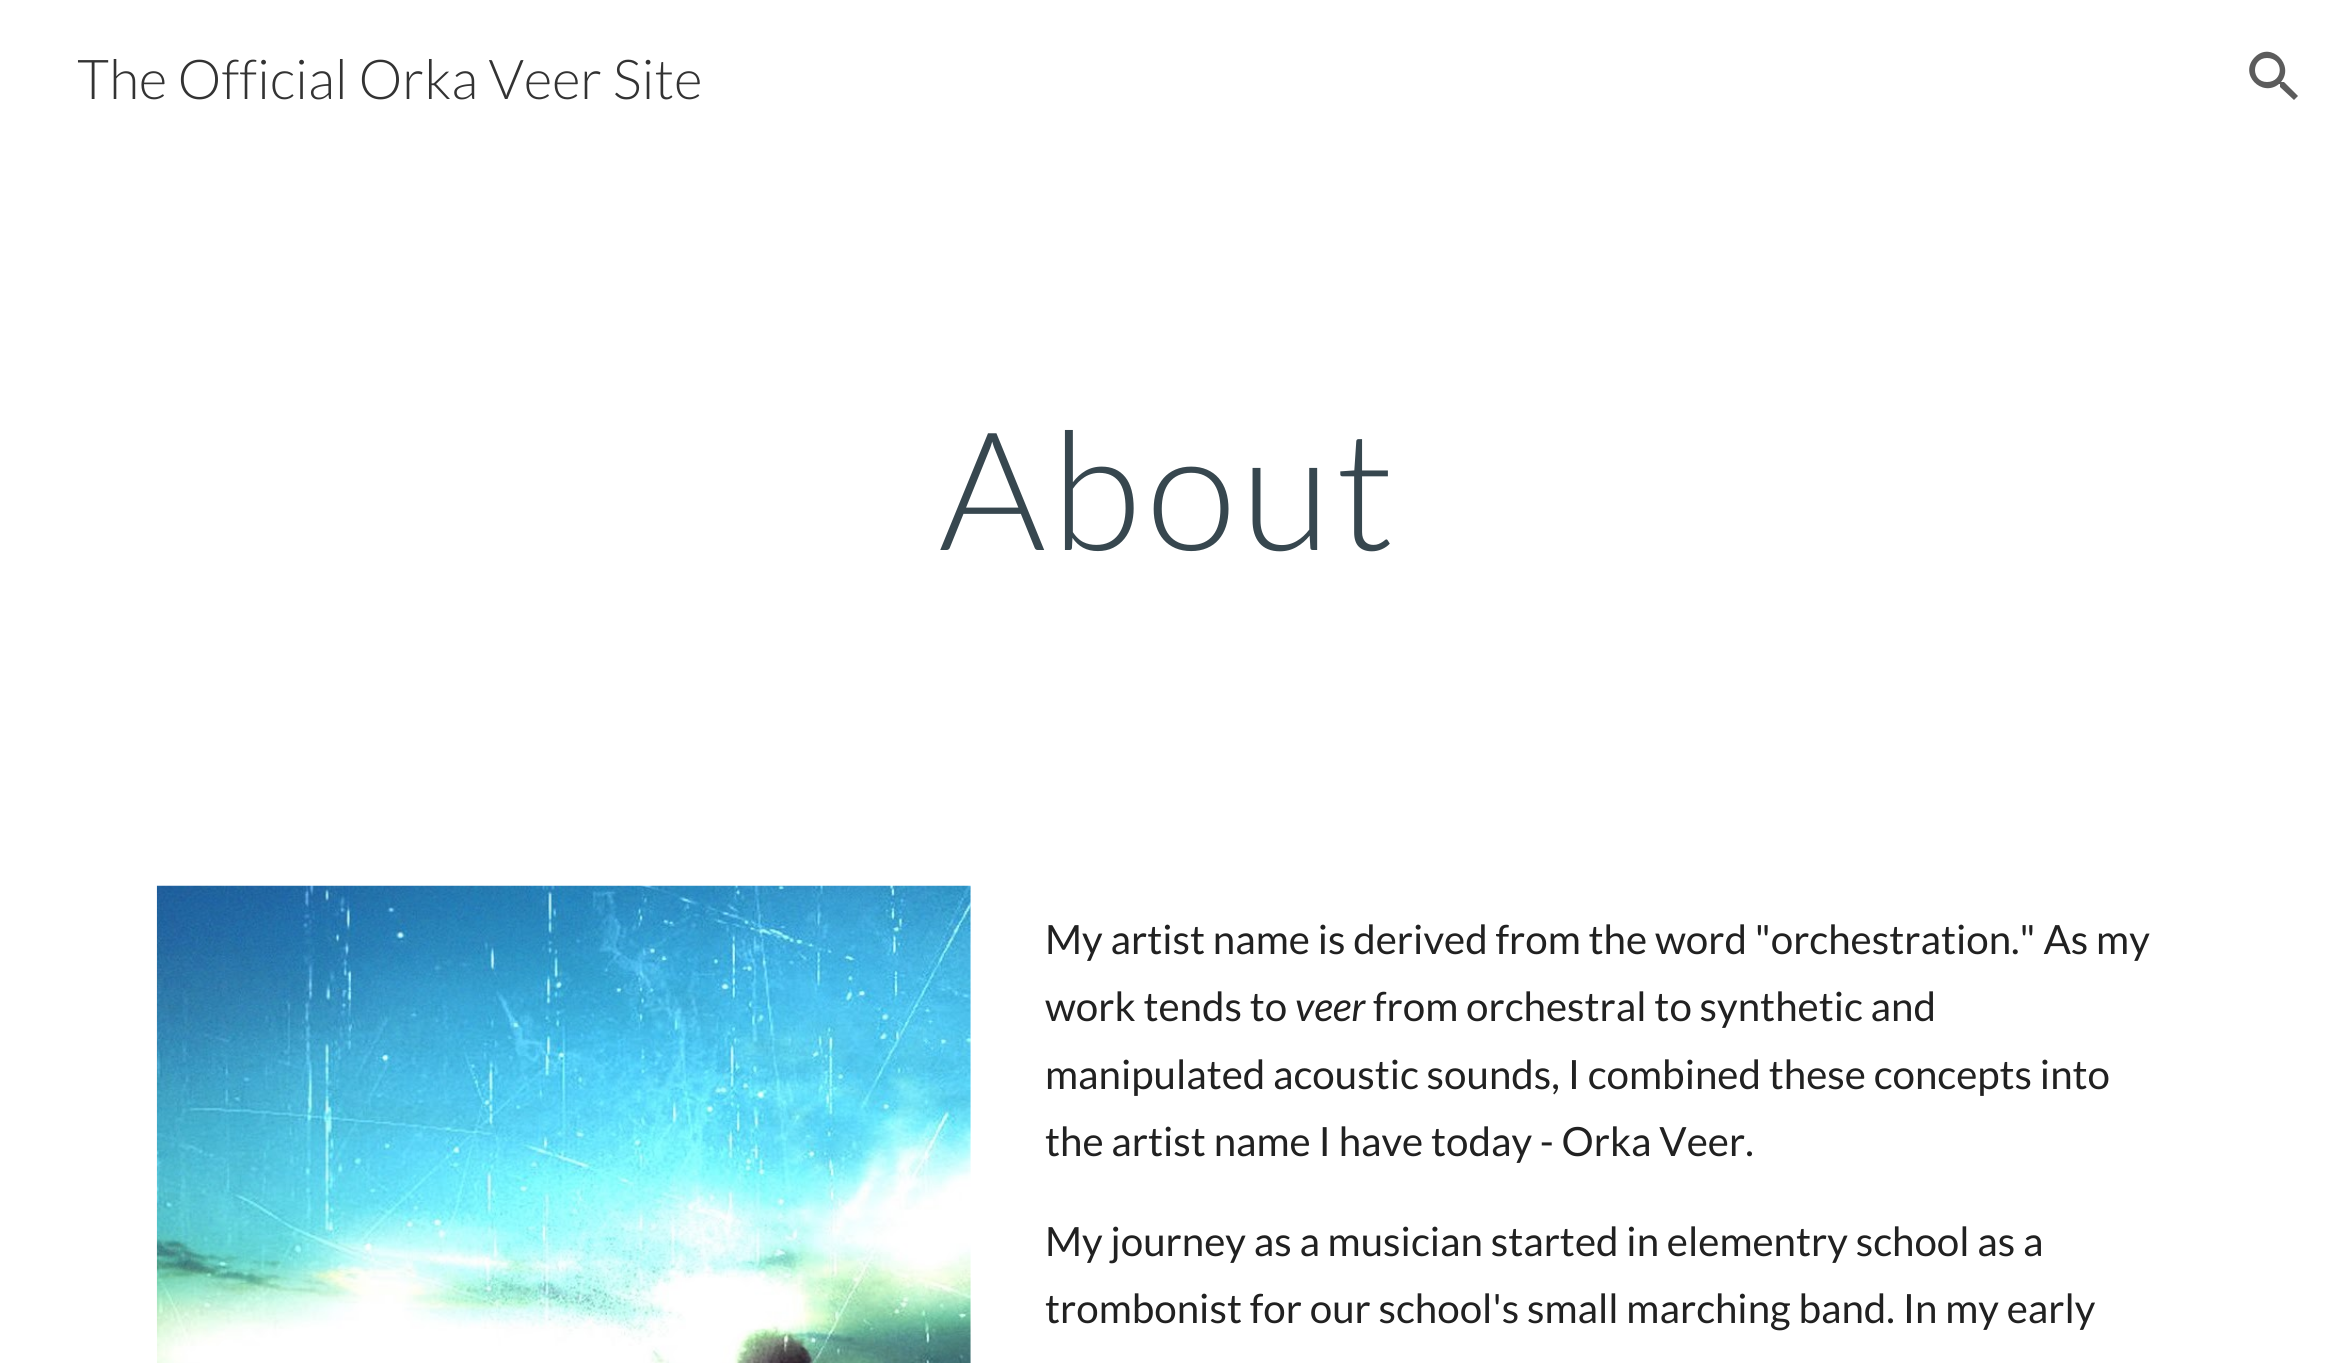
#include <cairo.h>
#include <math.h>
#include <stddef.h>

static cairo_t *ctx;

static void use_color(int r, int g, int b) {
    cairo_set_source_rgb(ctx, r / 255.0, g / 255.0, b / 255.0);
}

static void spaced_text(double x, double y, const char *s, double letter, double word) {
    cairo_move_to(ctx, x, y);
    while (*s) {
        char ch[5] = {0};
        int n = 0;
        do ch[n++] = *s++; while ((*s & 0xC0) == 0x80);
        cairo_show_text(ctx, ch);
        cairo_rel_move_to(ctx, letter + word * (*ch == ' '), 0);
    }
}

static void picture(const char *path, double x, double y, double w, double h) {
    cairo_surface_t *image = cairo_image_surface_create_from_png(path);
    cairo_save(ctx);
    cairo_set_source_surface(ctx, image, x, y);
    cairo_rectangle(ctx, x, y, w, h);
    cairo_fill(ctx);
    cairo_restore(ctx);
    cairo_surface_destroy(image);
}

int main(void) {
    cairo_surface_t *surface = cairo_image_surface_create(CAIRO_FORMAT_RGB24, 2339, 1363);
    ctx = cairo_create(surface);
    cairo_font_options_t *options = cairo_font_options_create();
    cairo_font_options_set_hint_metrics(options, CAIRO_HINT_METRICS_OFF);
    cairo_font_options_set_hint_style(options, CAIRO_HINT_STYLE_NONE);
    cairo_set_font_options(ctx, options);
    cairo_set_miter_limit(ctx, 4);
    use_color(255, 255, 255);
    cairo_paint(ctx);
    cairo_select_font_face(ctx, "Lato Light", CAIRO_FONT_SLANT_NORMAL, CAIRO_FONT_WEIGHT_NORMAL);
    cairo_set_font_size(ctx, 55);
    use_color(51, 51, 51);
    cairo_move_to(ctx, 77, 99);
    cairo_show_text(ctx, "The Official Orka Veer Site");
    use_color(92, 92, 92);
    cairo_new_path(ctx);
    cairo_move_to(ctx, 2284, 82);
    cairo_line_to(ctx, 2282, 82);
    cairo_line_to(ctx, 2281, 82);
    cairo_curve_to(ctx, 2295, 65, 2271, 41, 2255, 57);
    cairo_curve_to(ctx, 2238, 74, 2262, 98, 2279, 84);
    cairo_line_to(ctx, 2280, 84);
    cairo_line_to(ctx, 2280, 87);
    cairo_line_to(ctx, 2294, 100);
    cairo_line_to(ctx, 2298, 96);
    cairo_close_path(ctx);
    cairo_move_to(ctx, 2267, 82);
    cairo_curve_to(ctx, 2251, 82, 2251, 58, 2267, 58);
    cairo_curve_to(ctx, 2284, 58, 2284, 82, 2267, 82);
    cairo_close_path(ctx);
    cairo_fill(ctx);
    cairo_set_font_size(ctx, 165);
    use_color(55, 71, 79);
    spaced_text(939, 550, "About", 5.5, 0);
    picture("img1.png", 156, 885, 815, 478);
    cairo_select_font_face(ctx, "Lato", CAIRO_FONT_SLANT_NORMAL, CAIRO_FONT_WEIGHT_NORMAL);
    cairo_set_font_size(ctx, 40.3);
    use_color(33, 33, 33);
    cairo_move_to(ctx, 1045, 954);
    cairo_show_text(ctx, "My artist name is derived from the word \"orchestration.\" As my");
    cairo_move_to(ctx, 1045, 1021);
    cairo_show_text(ctx, "work tends to");
    cairo_select_font_face(ctx, "Lato", CAIRO_FONT_SLANT_ITALIC, CAIRO_FONT_WEIGHT_NORMAL);
    cairo_move_to(ctx, 1295, 1021);
    cairo_show_text(ctx, "veer");
    cairo_select_font_face(ctx, "Lato", CAIRO_FONT_SLANT_NORMAL, CAIRO_FONT_WEIGHT_NORMAL);
    cairo_move_to(ctx, 1373, 1021);
    cairo_show_text(ctx, "from orchestral to synthetic and");
    cairo_move_to(ctx, 1045, 1089);
    cairo_show_text(ctx, "manipulated acoustic sounds, I combined these concepts into");
    cairo_move_to(ctx, 1045, 1156);
    cairo_show_text(ctx, "the artist name I have today - Orka Veer.");
    cairo_move_to(ctx, 1045, 1256);
    cairo_show_text(ctx, "My journey as a musician started in elementry school as a");
    cairo_move_to(ctx, 1045, 1323);
    cairo_show_text(ctx, "trombonist for our school's small marching band. In my early");
    cairo_surface_write_to_png(surface, "result.png");
    cairo_font_options_destroy(options);
    cairo_destroy(ctx);
    cairo_surface_destroy(surface);
    return 0;
}
